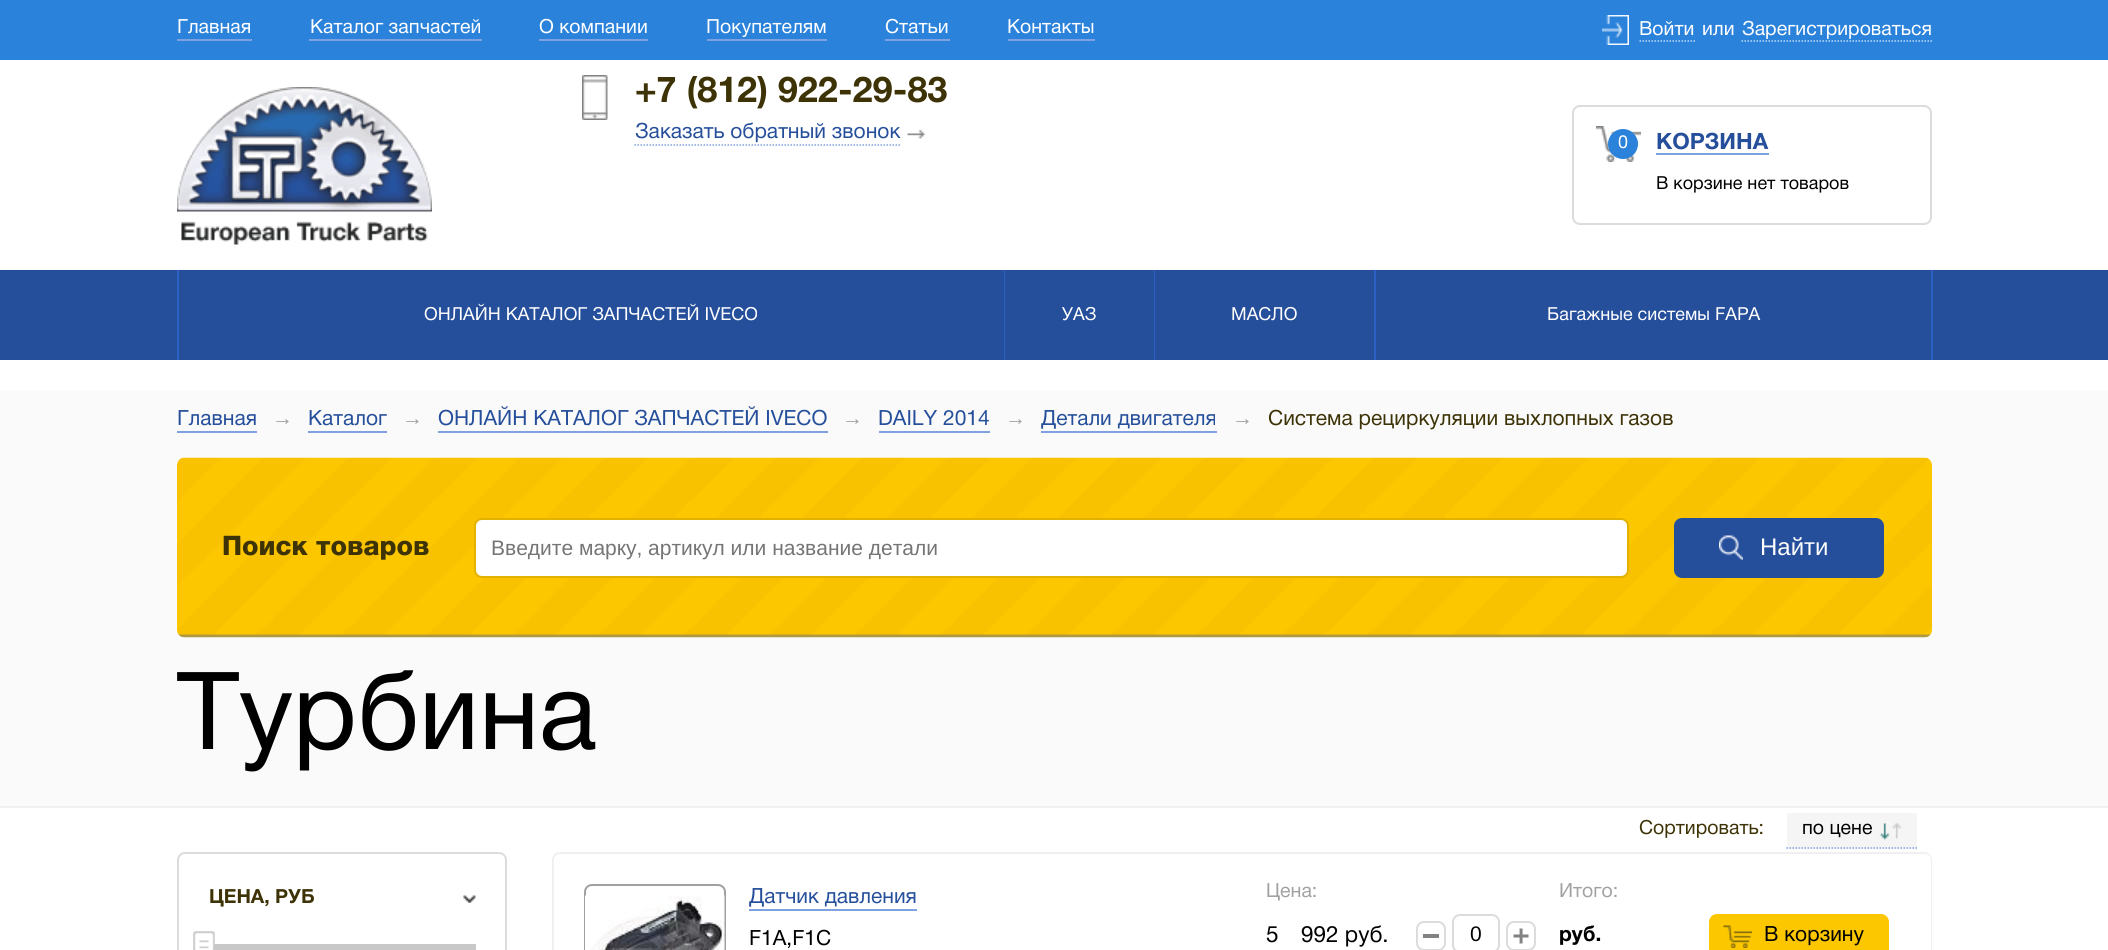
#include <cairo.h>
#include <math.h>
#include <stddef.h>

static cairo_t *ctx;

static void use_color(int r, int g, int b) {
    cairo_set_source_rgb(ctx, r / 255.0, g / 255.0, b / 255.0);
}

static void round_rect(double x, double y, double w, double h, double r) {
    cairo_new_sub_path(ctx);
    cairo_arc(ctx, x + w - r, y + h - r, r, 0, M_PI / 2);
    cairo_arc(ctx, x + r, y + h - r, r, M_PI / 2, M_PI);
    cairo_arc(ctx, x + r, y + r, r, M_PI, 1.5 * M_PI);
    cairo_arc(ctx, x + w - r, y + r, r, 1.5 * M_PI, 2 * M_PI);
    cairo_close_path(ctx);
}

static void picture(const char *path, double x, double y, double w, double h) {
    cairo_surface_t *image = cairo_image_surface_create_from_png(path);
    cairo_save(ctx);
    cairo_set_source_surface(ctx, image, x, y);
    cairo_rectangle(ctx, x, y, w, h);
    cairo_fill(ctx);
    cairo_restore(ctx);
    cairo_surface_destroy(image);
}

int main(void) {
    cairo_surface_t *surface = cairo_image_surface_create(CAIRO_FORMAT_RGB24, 2108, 950);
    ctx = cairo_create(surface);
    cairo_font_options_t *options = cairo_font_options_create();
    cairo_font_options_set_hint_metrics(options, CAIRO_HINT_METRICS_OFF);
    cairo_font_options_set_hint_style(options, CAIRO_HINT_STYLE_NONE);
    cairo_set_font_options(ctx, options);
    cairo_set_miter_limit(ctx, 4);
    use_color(255, 255, 255);
    cairo_paint(ctx);
    use_color(43, 130, 219);
    cairo_rectangle(ctx, 0, 0, 2108, 60);
    cairo_fill(ctx);
    use_color(127, 161, 224);
    cairo_rectangle(ctx, 177, 39, 75, 2);
    cairo_fill(ctx);
    cairo_select_font_face(ctx, "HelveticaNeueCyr", CAIRO_FONT_SLANT_NORMAL, CAIRO_FONT_WEIGHT_NORMAL);
    cairo_set_font_size(ctx, 19.5);
    use_color(255, 255, 255);
    cairo_move_to(ctx, 177, 33);
    cairo_show_text(ctx, "Главная");
    use_color(127, 161, 224);
    cairo_rectangle(ctx, 309, 39, 173, 2);
    cairo_fill(ctx);
    use_color(255, 255, 255);
    cairo_move_to(ctx, 310, 33);
    cairo_show_text(ctx, "Каталог запчастей");
    use_color(127, 161, 224);
    cairo_rectangle(ctx, 539, 39, 109, 2);
    cairo_fill(ctx);
    use_color(255, 255, 255);
    cairo_move_to(ctx, 539, 33);
    cairo_show_text(ctx, "О компании");
    use_color(127, 161, 224);
    cairo_rectangle(ctx, 707, 39, 120, 2);
    cairo_fill(ctx);
    use_color(255, 255, 255);
    cairo_move_to(ctx, 706, 33);
    cairo_show_text(ctx, "Покупателям");
    use_color(127, 161, 224);
    cairo_rectangle(ctx, 885, 39, 65, 2);
    cairo_fill(ctx);
    use_color(255, 255, 255);
    cairo_move_to(ctx, 885, 33);
    cairo_show_text(ctx, "Статьи");
    use_color(127, 161, 224);
    cairo_rectangle(ctx, 1008, 39, 87, 2);
    cairo_fill(ctx);
    use_color(255, 255, 255);
    cairo_move_to(ctx, 1007, 33);
    cairo_show_text(ctx, "Контакты");
    picture("img1.png", 1602, 15, 27, 30);
    cairo_new_path(ctx);
    cairo_move_to(ctx, 1639.5, 41);
    cairo_line_to(ctx, 1695, 41);
    use_color(191, 218, 244);
    cairo_set_line_width(ctx, 1.5);
    cairo_set_dash(ctx, (double[]){1.5, 1.5}, 2, 0);
    cairo_stroke(ctx);
    use_color(255, 255, 255);
    cairo_move_to(ctx, 1639, 35);
    cairo_show_text(ctx, "Войти");
    cairo_move_to(ctx, 1702, 35);
    cairo_show_text(ctx, "или");
    cairo_new_path(ctx);
    cairo_move_to(ctx, 1741.5, 41);
    cairo_line_to(ctx, 1932, 41);
    use_color(191, 218, 244);
    cairo_stroke(ctx);
    use_color(255, 255, 255);
    cairo_move_to(ctx, 1742, 35);
    cairo_show_text(ctx, "Зарегистрироваться");
    picture("img2.png", 177, 87, 255, 158);
    picture("img3.png", 582, 75, 26, 45);
    cairo_select_font_face(ctx, "HelveticaNeueCyr", CAIRO_FONT_SLANT_NORMAL, CAIRO_FONT_WEIGHT_BOLD);
    cairo_set_font_size(ctx, 36);
    use_color(61, 51, 7);
    cairo_move_to(ctx, 635, 102);
    cairo_show_text(ctx, "+7 (812) 922-29-83");
    cairo_new_path(ctx);
    cairo_move_to(ctx, 634.5, 145);
    cairo_line_to(ctx, 900, 145);
    use_color(127, 161, 224);
    cairo_stroke(ctx);
    cairo_select_font_face(ctx, "HelveticaNeueCyr", CAIRO_FONT_SLANT_NORMAL, CAIRO_FONT_WEIGHT_NORMAL);
    cairo_set_font_size(ctx, 21);
    use_color(37, 78, 155);
    cairo_move_to(ctx, 635, 138);
    cairo_show_text(ctx, "Заказать обратный звонок");
    picture("img4.png", 907, 129, 19, 11);
    round_rect(1573, 106, 358, 118, 7);
    use_color(220, 220, 220);
    cairo_set_line_width(ctx, 2);
    cairo_set_dash(ctx, NULL, 0, 0);
    cairo_stroke(ctx);
    picture("img5.png", 1596, 126, 45, 36);
    cairo_select_font_face(ctx, "HelveticaNeueCyr", CAIRO_FONT_SLANT_NORMAL, CAIRO_FONT_WEIGHT_BOLD);
    cairo_set_font_size(ctx, 22.5);
    use_color(37, 78, 155);
    cairo_move_to(ctx, 1656, 149);
    cairo_show_text(ctx, "КОРЗИНА");
    use_color(127, 161, 224);
    cairo_rectangle(ctx, 1656, 153, 113, 2);
    cairo_fill(ctx);
    use_color(43, 130, 219);
    cairo_arc(ctx, 1623, 144, 15, 0, 2 * M_PI);
    cairo_fill(ctx);
    cairo_select_font_face(ctx, "HelveticaNeueCyr", CAIRO_FONT_SLANT_NORMAL, CAIRO_FONT_WEIGHT_NORMAL);
    cairo_set_font_size(ctx, 18);
    use_color(255, 255, 255);
    cairo_move_to(ctx, 1618, 148);
    cairo_show_text(ctx, "0");
    use_color(0, 0, 0);
    cairo_move_to(ctx, 1656, 189);
    cairo_show_text(ctx, "В корзине нет товаров");
    use_color(37, 78, 155);
    cairo_rectangle(ctx, 0, 270, 2108, 90);
    cairo_fill(ctx);
    use_color(44, 96, 194);
    cairo_rectangle(ctx, 177, 270, 2, 90);
    cairo_fill(ctx);
    use_color(255, 255, 255);
    cairo_move_to(ctx, 424, 320);
    cairo_show_text(ctx, "ОНЛАЙН КАТАЛОГ ЗАПЧАСТЕЙ IVECO");
    use_color(44, 96, 194);
    cairo_rectangle(ctx, 1004, 270, 1, 90);
    cairo_fill(ctx);
    use_color(255, 255, 255);
    cairo_move_to(ctx, 1062, 320);
    cairo_show_text(ctx, "УАЗ");
    use_color(44, 96, 194);
    cairo_rectangle(ctx, 1154, 270, 1, 90);
    cairo_fill(ctx);
    use_color(255, 255, 255);
    cairo_move_to(ctx, 1231, 320);
    cairo_show_text(ctx, "МАСЛО");
    use_color(44, 96, 194);
    cairo_rectangle(ctx, 1931, 270, 2, 90);
    cairo_fill(ctx);
    cairo_rectangle(ctx, 1374, 270, 2, 90);
    cairo_fill(ctx);
    use_color(255, 255, 255);
    cairo_move_to(ctx, 1547, 320);
    cairo_show_text(ctx, "Багажные системы FAPA");
    use_color(250, 250, 250);
    cairo_rectangle(ctx, 0, 390, 2108, 416);
    cairo_fill(ctx);
    use_color(240, 240, 240);
    cairo_rectangle(ctx, 0, 806, 2108, 2);
    cairo_fill(ctx);
    use_color(127, 161, 224);
    cairo_rectangle(ctx, 177, 431, 80, 2);
    cairo_fill(ctx);
    cairo_set_font_size(ctx, 21);
    use_color(37, 78, 155);
    cairo_move_to(ctx, 177, 425);
    cairo_show_text(ctx, "Главная");
    cairo_select_font_face(ctx, "Liberation Serif", CAIRO_FONT_SLANT_NORMAL, CAIRO_FONT_WEIGHT_NORMAL);
    use_color(161, 161, 161);
    cairo_move_to(ctx, 272, 425);
    cairo_show_text(ctx, "→");
    use_color(127, 161, 224);
    cairo_rectangle(ctx, 308, 431, 79, 2);
    cairo_fill(ctx);
    cairo_select_font_face(ctx, "HelveticaNeueCyr", CAIRO_FONT_SLANT_NORMAL, CAIRO_FONT_WEIGHT_NORMAL);
    use_color(37, 78, 155);
    cairo_move_to(ctx, 308, 425);
    cairo_show_text(ctx, "Каталог");
    cairo_select_font_face(ctx, "Liberation Serif", CAIRO_FONT_SLANT_NORMAL, CAIRO_FONT_WEIGHT_NORMAL);
    use_color(161, 161, 161);
    cairo_move_to(ctx, 402, 425);
    cairo_show_text(ctx, "→");
    use_color(127, 161, 224);
    cairo_rectangle(ctx, 438, 431, 390, 2);
    cairo_fill(ctx);
    cairo_select_font_face(ctx, "HelveticaNeueCyr", CAIRO_FONT_SLANT_NORMAL, CAIRO_FONT_WEIGHT_NORMAL);
    use_color(37, 78, 155);
    cairo_move_to(ctx, 438, 425);
    cairo_show_text(ctx, "ОНЛАЙН КАТАЛОГ ЗАПЧАСТЕЙ IVECO");
    cairo_select_font_face(ctx, "Liberation Serif", CAIRO_FONT_SLANT_NORMAL, CAIRO_FONT_WEIGHT_NORMAL);
    use_color(161, 161, 161);
    cairo_move_to(ctx, 842, 425);
    cairo_show_text(ctx, "→");
    use_color(127, 161, 224);
    cairo_rectangle(ctx, 879, 431, 111, 2);
    cairo_fill(ctx);
    cairo_select_font_face(ctx, "HelveticaNeueCyr", CAIRO_FONT_SLANT_NORMAL, CAIRO_FONT_WEIGHT_NORMAL);
    use_color(37, 78, 155);
    cairo_move_to(ctx, 878, 425);
    cairo_show_text(ctx, "DAILY 2014");
    cairo_select_font_face(ctx, "Liberation Serif", CAIRO_FONT_SLANT_NORMAL, CAIRO_FONT_WEIGHT_NORMAL);
    use_color(161, 161, 161);
    cairo_move_to(ctx, 1005, 425);
    cairo_show_text(ctx, "→");
    use_color(127, 161, 224);
    cairo_rectangle(ctx, 1041, 431, 176, 2);
    cairo_fill(ctx);
    cairo_select_font_face(ctx, "HelveticaNeueCyr", CAIRO_FONT_SLANT_NORMAL, CAIRO_FONT_WEIGHT_NORMAL);
    use_color(37, 78, 155);
    cairo_move_to(ctx, 1041, 425);
    cairo_show_text(ctx, "Детали двигателя");
    cairo_select_font_face(ctx, "Liberation Serif", CAIRO_FONT_SLANT_NORMAL, CAIRO_FONT_WEIGHT_NORMAL);
    use_color(161, 161, 161);
    cairo_move_to(ctx, 1232, 425);
    cairo_show_text(ctx, "→");
    cairo_select_font_face(ctx, "HelveticaNeueCyr", CAIRO_FONT_SLANT_NORMAL, CAIRO_FONT_WEIGHT_NORMAL);
    use_color(61, 51, 7);
    cairo_move_to(ctx, 1268, 425);
    cairo_show_text(ctx, "Система рециркуляции выхлопных газов");
    picture("img6.png", 177, 457, 1755, 181);
    cairo_select_font_face(ctx, "HelveticaNeueCyr Black", CAIRO_FONT_SLANT_NORMAL, CAIRO_FONT_WEIGHT_NORMAL);
    cairo_set_font_size(ctx, 27);
    cairo_move_to(ctx, 222, 555);
    cairo_show_text(ctx, "Поиск товаров");
    use_color(255, 255, 255);
    round_rect(475, 519, 1153, 58, 7);
    cairo_fill_preserve(ctx);
    use_color(227, 178, 0);
    cairo_stroke(ctx);
    cairo_select_font_face(ctx, "Liberation Sans", CAIRO_FONT_SLANT_NORMAL, CAIRO_FONT_WEIGHT_NORMAL);
    cairo_set_font_size(ctx, 21);
    use_color(117, 117, 117);
    cairo_move_to(ctx, 491, 555);
    cairo_show_text(ctx, "Введите марку, артикул или название детали");
    use_color(37, 78, 155);
    round_rect(1674, 518, 210, 60, 8);
    cairo_fill(ctx);
    picture("img7.png", 1719, 535, 24, 25);
    cairo_set_font_size(ctx, 24);
    use_color(255, 255, 255);
    cairo_move_to(ctx, 1760, 555);
    cairo_show_text(ctx, "Найти");
    cairo_select_font_face(ctx, "HelveticaNeueCyr", CAIRO_FONT_SLANT_NORMAL, CAIRO_FONT_WEIGHT_NORMAL);
    cairo_set_font_size(ctx, 108);
    use_color(0, 0, 0);
    cairo_move_to(ctx, 177, 749);
    cairo_show_text(ctx, "Турбина");
    cairo_set_font_size(ctx, 19.5);
    use_color(61, 51, 7);
    cairo_move_to(ctx, 1639, 834);
    cairo_show_text(ctx, "Сортировать:");
    use_color(245, 245, 245);
    cairo_rectangle(ctx, 1787, 813, 130, 36);
    cairo_fill(ctx);
    cairo_new_path(ctx);
    cairo_move_to(ctx, 1786.5, 848);
    cairo_line_to(ctx, 1917, 848);
    use_color(127, 161, 224);
    cairo_set_line_width(ctx, 1.5);
    cairo_set_dash(ctx, (double[]){1.5, 1.5}, 2, 0);
    cairo_stroke(ctx);
    use_color(0, 0, 0);
    cairo_move_to(ctx, 1802, 834);
    cairo_show_text(ctx, "по цене");
    picture("img8.png", 1879, 822, 23, 18);
    round_rect(178, 853, 328, 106, 7);
    use_color(220, 220, 220);
    cairo_set_line_width(ctx, 2);
    cairo_set_dash(ctx, NULL, 0, 0);
    cairo_stroke(ctx);
    cairo_select_font_face(ctx, "HelveticaNeueCyr", CAIRO_FONT_SLANT_NORMAL, CAIRO_FONT_WEIGHT_BOLD);
    use_color(61, 51, 7);
    cairo_move_to(ctx, 209, 903);
    cairo_show_text(ctx, "ЦЕНА, РУБ");
    picture("img9.png", 463, 895, 13, 8);
    use_color(200, 200, 200);
    cairo_rectangle(ctx, 209, 944, 267, 6);
    cairo_fill(ctx);
    picture("img11.png", 193, 931, 22, 19);
    picture("img10.png", 193, 931, 22, 19);
    round_rect(553, 853, 1378, 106, 7);
    use_color(240, 240, 240);
    cairo_stroke(ctx);
    use_color(255, 255, 255);
    round_rect(554, 854, 1377, 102, 6);
    cairo_fill(ctx);
    round_rect(585, 885, 140, 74, 7);
    use_color(160, 160, 160);
    cairo_stroke(ctx);
    picture("img12.png", 585, 895, 140, 55);
    use_color(127, 161, 224);
    cairo_rectangle(ctx, 749, 909, 168, 2);
    cairo_fill(ctx);
    cairo_select_font_face(ctx, "HelveticaNeueCyr", CAIRO_FONT_SLANT_NORMAL, CAIRO_FONT_WEIGHT_NORMAL);
    cairo_set_font_size(ctx, 21);
    use_color(37, 78, 155);
    cairo_move_to(ctx, 749, 903);
    cairo_show_text(ctx, "Датчик давления");
    use_color(0, 0, 0);
    cairo_move_to(ctx, 749, 945);
    cairo_show_text(ctx, "F1A,F1C");
    cairo_set_font_size(ctx, 19.5);
    use_color(161, 161, 161);
    cairo_move_to(ctx, 1266, 897);
    cairo_show_text(ctx, "Цена:");
    cairo_set_font_size(ctx, 22.5);
    use_color(0, 0, 0);
    cairo_move_to(ctx, 1266, 942);
    cairo_show_text(ctx, "5 992 руб.");
    round_rect(1417, 922, 28, 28, 7);
    use_color(220, 220, 220);
    cairo_stroke(ctx);
    use_color(130, 130, 130);
    cairo_rectangle(ctx, 1423, 934, 16, 4);
    cairo_fill(ctx);
    round_rect(1453, 915, 46, 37, 7);
    use_color(220, 220, 220);
    cairo_stroke(ctx);
    cairo_select_font_face(ctx, "Liberation Sans", CAIRO_FONT_SLANT_NORMAL, CAIRO_FONT_WEIGHT_NORMAL);
    cairo_set_font_size(ctx, 21);
    use_color(0, 0, 0);
    cairo_move_to(ctx, 1470, 941);
    cairo_show_text(ctx, "0");
    round_rect(1507, 922, 28, 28, 7);
    use_color(220, 220, 220);
    cairo_stroke(ctx);
    picture("img13.png", 1513, 928, 16, 16);
    cairo_select_font_face(ctx, "HelveticaNeueCyr", CAIRO_FONT_SLANT_NORMAL, CAIRO_FONT_WEIGHT_NORMAL);
    cairo_set_font_size(ctx, 19.5);
    use_color(161, 161, 161);
    cairo_move_to(ctx, 1559, 897);
    cairo_show_text(ctx, "Итого:");
    cairo_select_font_face(ctx, "HelveticaNeueCyr", CAIRO_FONT_SLANT_NORMAL, CAIRO_FONT_WEIGHT_BOLD);
    cairo_set_font_size(ctx, 21);
    use_color(0, 0, 0);
    cairo_move_to(ctx, 1559, 941);
    cairo_show_text(ctx, "руб.");
    use_color(253, 199, 0);
    round_rect(1709, 914, 180, 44, 8);
    cairo_fill(ctx);
    picture("img14.png", 1723, 925, 29, 23);
    cairo_select_font_face(ctx, "HelveticaNeueCyr", CAIRO_FONT_SLANT_NORMAL, CAIRO_FONT_WEIGHT_NORMAL);
    use_color(0, 0, 0);
    cairo_move_to(ctx, 1764, 941);
    cairo_show_text(ctx, "В корзину");
    cairo_surface_write_to_png(surface, "result.png");
    cairo_font_options_destroy(options);
    cairo_destroy(ctx);
    cairo_surface_destroy(surface);
    return 0;
}
